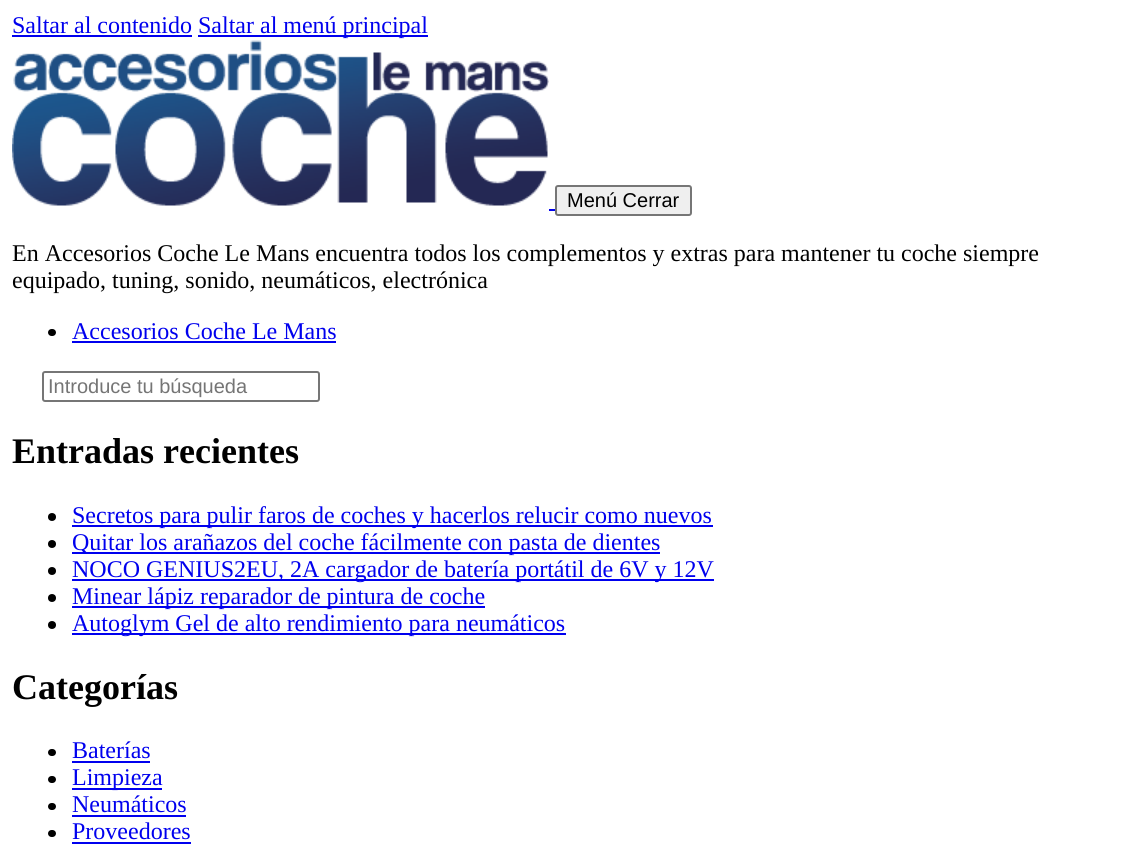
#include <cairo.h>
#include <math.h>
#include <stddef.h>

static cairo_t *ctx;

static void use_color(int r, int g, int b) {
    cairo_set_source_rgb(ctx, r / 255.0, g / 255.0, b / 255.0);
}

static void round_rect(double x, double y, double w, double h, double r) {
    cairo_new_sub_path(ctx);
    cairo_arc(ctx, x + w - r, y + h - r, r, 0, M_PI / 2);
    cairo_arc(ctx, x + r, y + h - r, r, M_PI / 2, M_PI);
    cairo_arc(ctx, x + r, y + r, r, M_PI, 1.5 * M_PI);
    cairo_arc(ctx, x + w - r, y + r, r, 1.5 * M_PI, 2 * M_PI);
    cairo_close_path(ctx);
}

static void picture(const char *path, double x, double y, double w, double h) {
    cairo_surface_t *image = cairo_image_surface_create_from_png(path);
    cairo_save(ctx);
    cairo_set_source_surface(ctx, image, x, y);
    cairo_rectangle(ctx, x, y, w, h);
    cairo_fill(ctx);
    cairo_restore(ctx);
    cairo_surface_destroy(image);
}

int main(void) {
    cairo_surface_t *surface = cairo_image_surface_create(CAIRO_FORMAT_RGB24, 1135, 856);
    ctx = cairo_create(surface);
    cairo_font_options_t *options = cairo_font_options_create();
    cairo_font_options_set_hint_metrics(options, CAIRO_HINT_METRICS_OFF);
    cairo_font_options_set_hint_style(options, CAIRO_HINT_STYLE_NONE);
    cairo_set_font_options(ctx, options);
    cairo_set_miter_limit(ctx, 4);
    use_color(255, 255, 255);
    cairo_paint(ctx);
    cairo_select_font_face(ctx, "Liberation Serif", CAIRO_FONT_SLANT_NORMAL, CAIRO_FONT_WEIGHT_NORMAL);
    cairo_set_font_size(ctx, 24);
    use_color(0, 0, 238);
    cairo_move_to(ctx, 12, 33);
    cairo_show_text(ctx, "Saltar al contenido");
    cairo_rectangle(ctx, 12, 35, 180, 2);
    cairo_fill(ctx);
    cairo_rectangle(ctx, 198, 35, 230, 2);
    cairo_fill(ctx);
    cairo_move_to(ctx, 198, 33);
    cairo_show_text(ctx, "Saltar al menú principal");
    picture("img1.png", 12, 40, 537, 166);
    use_color(239, 239, 239);
    round_rect(556, 186, 135, 29, 2);
    cairo_fill_preserve(ctx);
    use_color(118, 118, 118);
    cairo_stroke(ctx);
    cairo_select_font_face(ctx, "Liberation Sans", CAIRO_FONT_SLANT_NORMAL, CAIRO_FONT_WEIGHT_NORMAL);
    cairo_set_font_size(ctx, 20);
    use_color(0, 0, 0);
    cairo_move_to(ctx, 567, 207);
    cairo_show_text(ctx, "Menú Cerrar");
    use_color(0, 0, 238);
    cairo_rectangle(ctx, 549, 209, 6, 2);
    cairo_fill(ctx);
    cairo_select_font_face(ctx, "Liberation Serif", CAIRO_FONT_SLANT_NORMAL, CAIRO_FONT_WEIGHT_NORMAL);
    cairo_set_font_size(ctx, 24);
    use_color(0, 0, 0);
    cairo_move_to(ctx, 12, 261);
    cairo_show_text(ctx, "En Accesorios Coche Le Mans encuentra todos los complementos y extras para mantener tu coche siempre");
    cairo_move_to(ctx, 12, 288);
    cairo_show_text(ctx, "equipado, tuning, sonido, neumáticos, electrónica");
    round_rect(48, 329, 8, 7, 3.5);
    cairo_fill(ctx);
    use_color(0, 0, 238);
    cairo_move_to(ctx, 72, 339);
    cairo_show_text(ctx, "Accesorios Coche Le Mans");
    cairo_rectangle(ctx, 72, 341, 264, 2);
    cairo_fill(ctx);
    round_rect(43, 372, 276, 29, 2);
    use_color(118, 118, 118);
    cairo_stroke(ctx);
    cairo_select_font_face(ctx, "Liberation Sans", CAIRO_FONT_SLANT_NORMAL, CAIRO_FONT_WEIGHT_NORMAL);
    cairo_set_font_size(ctx, 20);
    use_color(117, 117, 117);
    cairo_move_to(ctx, 48, 393);
    cairo_show_text(ctx, "Introduce tu búsqueda");
    cairo_select_font_face(ctx, "Liberation Serif", CAIRO_FONT_SLANT_NORMAL, CAIRO_FONT_WEIGHT_BOLD);
    cairo_set_font_size(ctx, 36);
    use_color(0, 0, 0);
    cairo_move_to(ctx, 12, 463);
    cairo_show_text(ctx, "Entradas recientes");
    cairo_new_path(ctx);
    cairo_arc(ctx, 52, 517, 4, 0, 2 * M_PI);
    cairo_fill(ctx);
    use_color(0, 0, 238);
    cairo_rectangle(ctx, 72, 525, 641, 2);
    cairo_fill(ctx);
    cairo_select_font_face(ctx, "Liberation Serif", CAIRO_FONT_SLANT_NORMAL, CAIRO_FONT_WEIGHT_NORMAL);
    cairo_set_font_size(ctx, 24);
    cairo_move_to(ctx, 72, 523);
    cairo_show_text(ctx, "Secretos para pulir faros de coches y hacerlos relucir como nuevos");
    use_color(0, 0, 0);
    cairo_new_path(ctx);
    cairo_arc(ctx, 52, 544, 4, 0, 2 * M_PI);
    cairo_fill(ctx);
    use_color(0, 0, 238);
    cairo_rectangle(ctx, 72, 552, 588, 2);
    cairo_fill(ctx);
    cairo_move_to(ctx, 72, 550);
    cairo_show_text(ctx, "Quitar los arañazos del coche fácilmente con pasta de dientes");
    use_color(0, 0, 0);
    cairo_new_path(ctx);
    cairo_arc(ctx, 52, 571, 4, 0, 2 * M_PI);
    cairo_fill(ctx);
    use_color(0, 0, 238);
    cairo_rectangle(ctx, 72, 579, 642, 2);
    cairo_fill(ctx);
    cairo_move_to(ctx, 72, 577);
    cairo_show_text(ctx, "NOCO GENIUS2EU, 2A cargador de batería portátil de 6V y 12V");
    use_color(0, 0, 0);
    cairo_new_path(ctx);
    cairo_arc(ctx, 52, 598, 4, 0, 2 * M_PI);
    cairo_fill(ctx);
    use_color(0, 0, 238);
    cairo_rectangle(ctx, 72, 606, 413, 2);
    cairo_fill(ctx);
    cairo_move_to(ctx, 72, 604);
    cairo_show_text(ctx, "Minear lápiz reparador de pintura de coche");
    use_color(0, 0, 0);
    cairo_new_path(ctx);
    cairo_arc(ctx, 52, 625, 4, 0, 2 * M_PI);
    cairo_fill(ctx);
    use_color(0, 0, 238);
    cairo_rectangle(ctx, 72, 633, 494, 2);
    cairo_fill(ctx);
    cairo_move_to(ctx, 72, 631);
    cairo_show_text(ctx, "Autoglym Gel de alto rendimiento para neumáticos");
    cairo_select_font_face(ctx, "Liberation Serif", CAIRO_FONT_SLANT_NORMAL, CAIRO_FONT_WEIGHT_BOLD);
    cairo_set_font_size(ctx, 36);
    use_color(0, 0, 0);
    cairo_move_to(ctx, 12, 699);
    cairo_show_text(ctx, "Categorías");
    round_rect(48, 749, 8, 7, 3.5);
    cairo_fill(ctx);
    cairo_select_font_face(ctx, "Liberation Serif", CAIRO_FONT_SLANT_NORMAL, CAIRO_FONT_WEIGHT_NORMAL);
    cairo_set_font_size(ctx, 24);
    use_color(0, 0, 238);
    cairo_move_to(ctx, 72, 758);
    cairo_show_text(ctx, "Baterías");
    cairo_rectangle(ctx, 72, 761, 78, 2);
    cairo_fill(ctx);
    use_color(0, 0, 0);
    round_rect(48, 776, 8, 7, 3.5);
    cairo_fill(ctx);
    use_color(0, 0, 238);
    cairo_rectangle(ctx, 72, 788, 90, 2);
    cairo_fill(ctx);
    cairo_move_to(ctx, 72, 785);
    cairo_show_text(ctx, "Limpieza");
    use_color(0, 0, 0);
    round_rect(48, 803, 8, 7, 3.5);
    cairo_fill(ctx);
    use_color(0, 0, 238);
    cairo_move_to(ctx, 72, 812);
    cairo_show_text(ctx, "Neumáticos");
    cairo_rectangle(ctx, 72, 815, 114, 2);
    cairo_fill(ctx);
    use_color(0, 0, 0);
    round_rect(48, 830, 8, 7, 3.5);
    cairo_fill(ctx);
    use_color(0, 0, 238);
    cairo_move_to(ctx, 72, 839);
    cairo_show_text(ctx, "Proveedores");
    cairo_rectangle(ctx, 72, 842, 119, 2);
    cairo_fill(ctx);
    cairo_surface_write_to_png(surface, "result.png");
    cairo_font_options_destroy(options);
    cairo_destroy(ctx);
    cairo_surface_destroy(surface);
    return 0;
}
